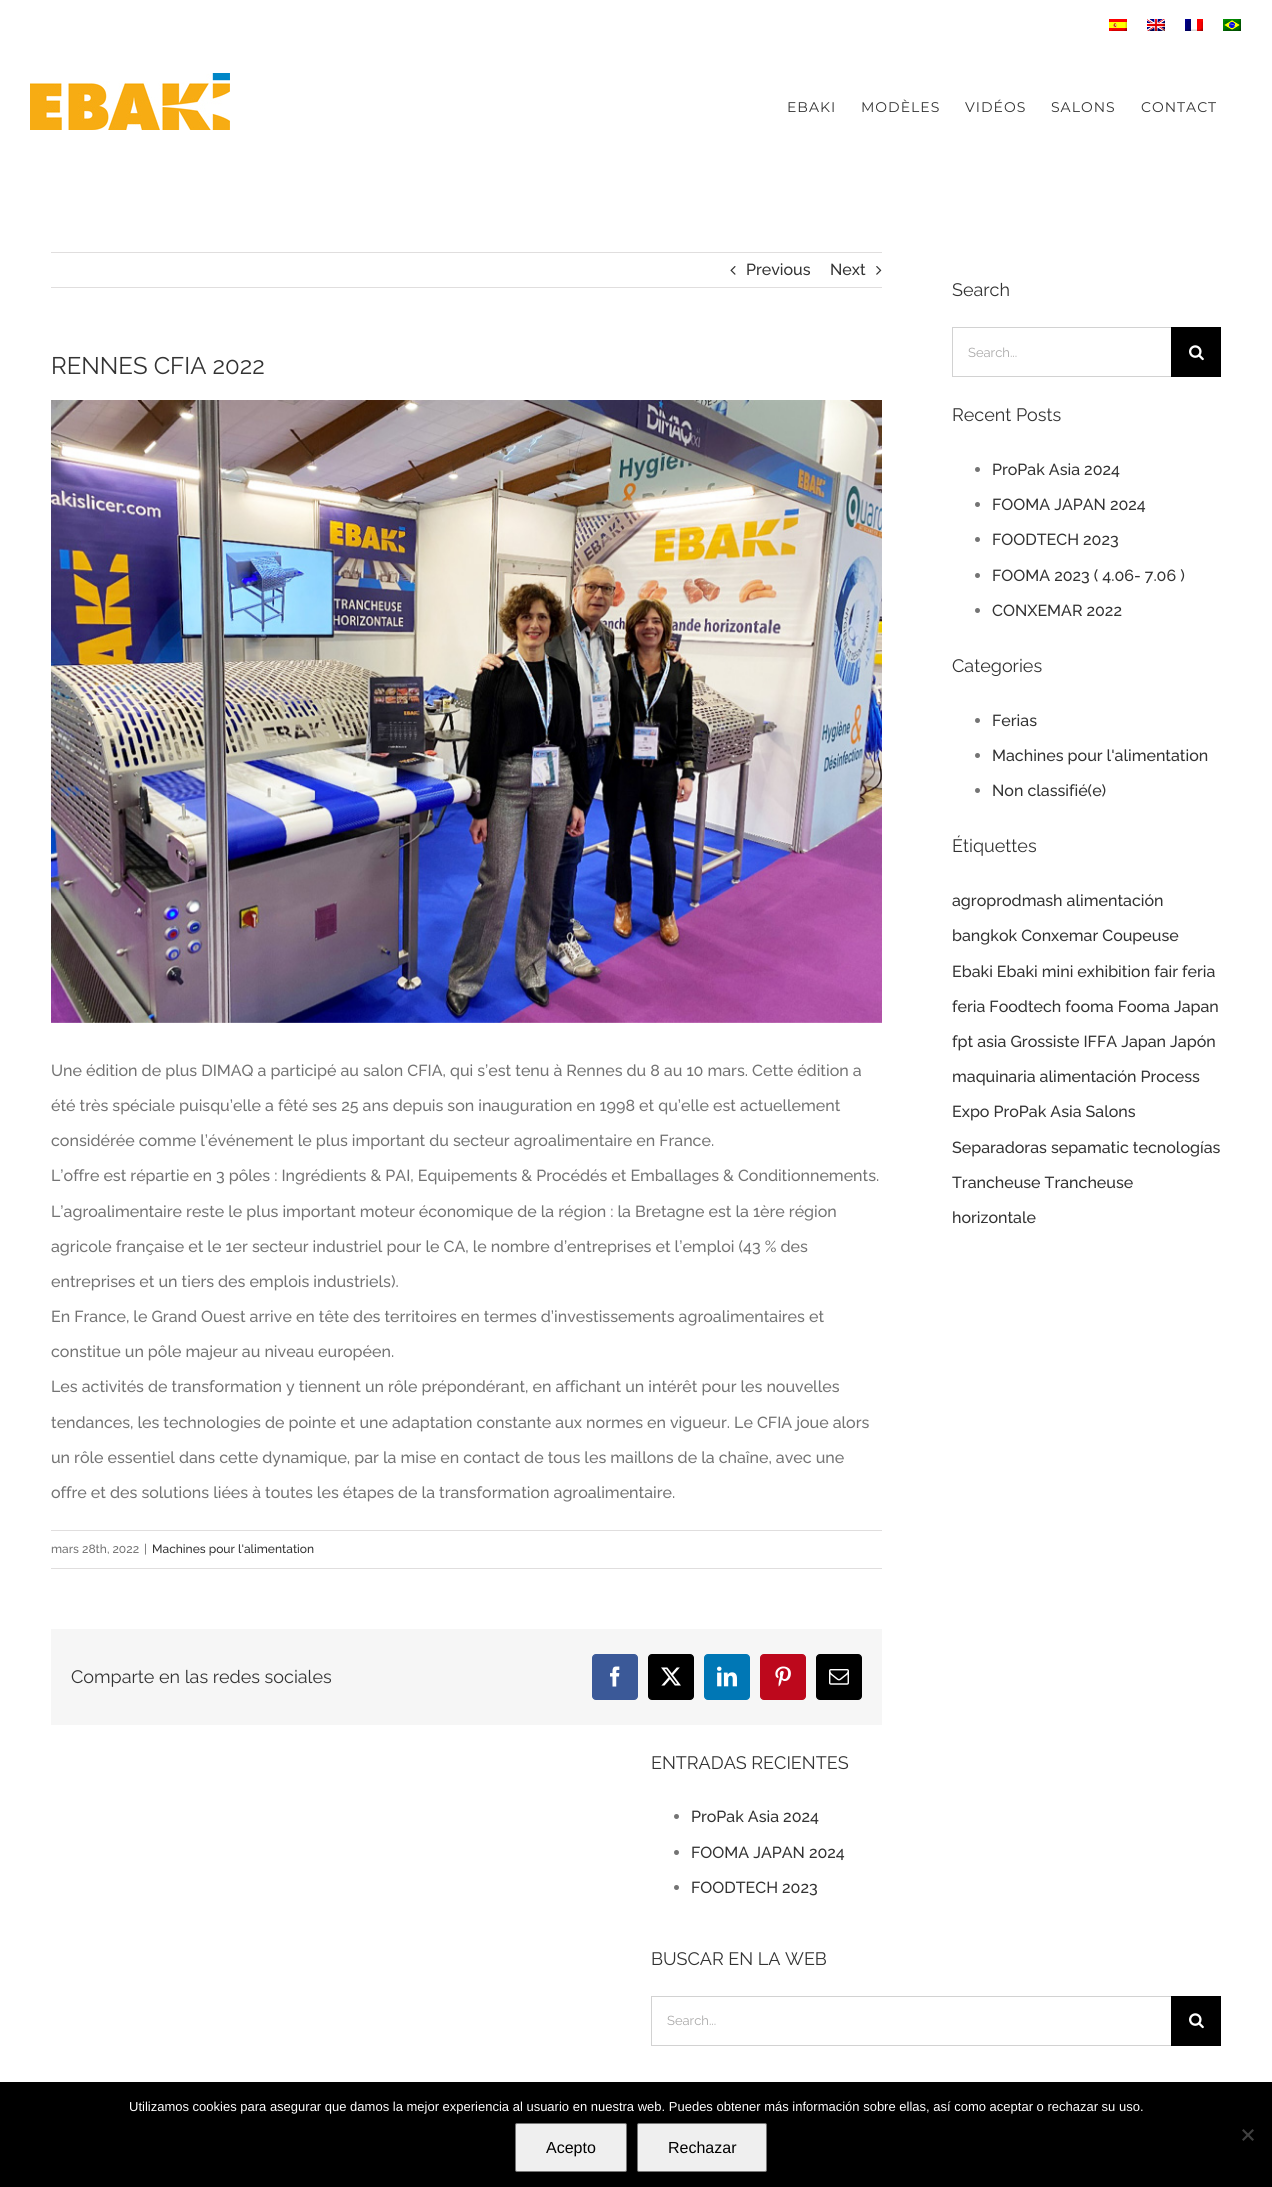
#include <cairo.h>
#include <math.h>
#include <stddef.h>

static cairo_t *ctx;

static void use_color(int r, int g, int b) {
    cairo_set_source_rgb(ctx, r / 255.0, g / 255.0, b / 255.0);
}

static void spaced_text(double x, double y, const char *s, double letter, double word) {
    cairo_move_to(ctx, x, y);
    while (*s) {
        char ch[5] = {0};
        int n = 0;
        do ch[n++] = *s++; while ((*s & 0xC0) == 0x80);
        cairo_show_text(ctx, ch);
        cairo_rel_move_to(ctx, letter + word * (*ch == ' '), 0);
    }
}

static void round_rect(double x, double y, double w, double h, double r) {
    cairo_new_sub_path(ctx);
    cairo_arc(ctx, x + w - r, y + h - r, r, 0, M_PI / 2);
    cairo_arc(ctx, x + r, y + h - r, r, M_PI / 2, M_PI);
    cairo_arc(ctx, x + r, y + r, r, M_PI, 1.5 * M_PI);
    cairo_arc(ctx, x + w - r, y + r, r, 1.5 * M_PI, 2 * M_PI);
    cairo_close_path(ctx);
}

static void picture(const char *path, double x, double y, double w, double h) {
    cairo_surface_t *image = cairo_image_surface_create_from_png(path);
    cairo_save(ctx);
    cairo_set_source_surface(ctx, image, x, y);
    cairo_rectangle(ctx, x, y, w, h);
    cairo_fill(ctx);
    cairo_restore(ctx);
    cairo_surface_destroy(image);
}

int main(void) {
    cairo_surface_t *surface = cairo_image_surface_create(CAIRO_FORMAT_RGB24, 1272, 2187);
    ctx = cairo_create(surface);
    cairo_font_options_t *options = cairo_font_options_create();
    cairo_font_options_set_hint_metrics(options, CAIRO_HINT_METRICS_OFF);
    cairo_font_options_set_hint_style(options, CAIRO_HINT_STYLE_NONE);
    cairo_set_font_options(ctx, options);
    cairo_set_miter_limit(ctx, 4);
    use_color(255, 255, 255);
    cairo_paint(ctx);
    picture("img1.png", 1109, 19, 18, 12);
    picture("img2.png", 1147, 19, 18, 12);
    picture("img3.png", 1185, 19, 18, 12);
    picture("img4.png", 1223, 19, 18, 12);
    picture("img5.png", 30, 73, 200, 57);
    cairo_select_font_face(ctx, "Montserrat", CAIRO_FONT_SLANT_NORMAL, CAIRO_FONT_WEIGHT_NORMAL);
    cairo_set_font_size(ctx, 14);
    use_color(51, 51, 51);
    spaced_text(787, 112, "EBAKI", 1, 0);
    spaced_text(861, 112, "MODÈLES", 1, 0);
    spaced_text(965, 112, "VIDÉOS", 1, 0);
    spaced_text(1051, 112, "SALONS", 1, 0);
    spaced_text(1141, 112, "CONTACT", 1, 0);
    use_color(224, 222, 222);
    cairo_rectangle(ctx, 51, 252, 831, 1);
    cairo_fill(ctx);
    cairo_rectangle(ctx, 51, 287, 831, 1);
    cairo_fill(ctx);
    picture("img6.png", 730, 266, 6, 9);
    cairo_select_font_face(ctx, "Raleway Medium", CAIRO_FONT_SLANT_NORMAL, CAIRO_FONT_WEIGHT_NORMAL);
    cairo_set_font_size(ctx, 16);
    use_color(51, 51, 51);
    cairo_move_to(ctx, 746, 275);
    cairo_show_text(ctx, "Previous");
    cairo_move_to(ctx, 830, 275);
    cairo_show_text(ctx, "Next");
    picture("img7.png", 876, 266, 6, 9);
    cairo_select_font_face(ctx, "Raleway", CAIRO_FONT_SLANT_NORMAL, CAIRO_FONT_WEIGHT_NORMAL);
    cairo_set_font_size(ctx, 24);
    cairo_move_to(ctx, 51, 374);
    cairo_show_text(ctx, "RENNES CFIA 2022");
    picture("img8.png", 51, 400, 831, 623);
    cairo_select_font_face(ctx, "Raleway Medium", CAIRO_FONT_SLANT_NORMAL, CAIRO_FONT_WEIGHT_NORMAL);
    cairo_set_font_size(ctx, 16);
    use_color(116, 116, 116);
    cairo_move_to(ctx, 51, 1076);
    cairo_show_text(ctx, "Une édition de plus DIMAQ a participé au salon CFIA, qui s’est tenu à Rennes du 8 au 10 mars. Cette édition a");
    cairo_move_to(ctx, 51, 1111);
    cairo_show_text(ctx, "été très spéciale puisqu’elle a fêté ses 25 ans depuis son inauguration en 1998 et qu’elle est actuellement");
    cairo_move_to(ctx, 51, 1146);
    cairo_show_text(ctx, "considérée comme l’événement le plus important du secteur agroalimentaire en France.");
    cairo_move_to(ctx, 51, 1181);
    cairo_show_text(ctx, "L’offre est répartie en 3 pôles : Ingrédients & PAI, Equipements & Procédés et Emballages & Conditionnements.");
    cairo_move_to(ctx, 51, 1217);
    cairo_show_text(ctx, "L’agroalimentaire reste le plus important moteur économique de la région : la Bretagne est la 1ère région");
    cairo_move_to(ctx, 51, 1252);
    cairo_show_text(ctx, "agricole française et le 1er secteur industriel pour le CA, le nombre d’entreprises et l’emploi (43 % des");
    cairo_move_to(ctx, 51, 1287);
    cairo_show_text(ctx, "entreprises et un tiers des emplois industriels).");
    cairo_move_to(ctx, 51, 1322);
    cairo_show_text(ctx, "En France, le Grand Ouest arrive en tête des territoires en termes d’investissements agroalimentaires et");
    cairo_move_to(ctx, 51, 1357);
    cairo_show_text(ctx, "constitue un pôle majeur au niveau européen.");
    cairo_move_to(ctx, 51, 1392);
    cairo_show_text(ctx, "Les activités de transformation y tiennent un rôle prépondérant, en affichant un intérêt pour les nouvelles");
    cairo_move_to(ctx, 51, 1428);
    cairo_show_text(ctx, "tendances, les technologies de pointe et une adaptation constante aux normes en vigueur. Le CFIA joue alors");
    cairo_move_to(ctx, 51, 1463);
    cairo_show_text(ctx, "un rôle essentiel dans cette dynamique, par la mise en contact de tous les maillons de la chaîne, avec une");
    cairo_move_to(ctx, 51, 1498);
    cairo_show_text(ctx, "offre et des solutions liées à toutes les étapes de la transformation agroalimentaire.");
    use_color(224, 222, 222);
    cairo_rectangle(ctx, 51, 1530, 831, 1);
    cairo_fill(ctx);
    cairo_rectangle(ctx, 51, 1568, 831, 1);
    cairo_fill(ctx);
    cairo_set_font_size(ctx, 12);
    use_color(116, 116, 116);
    cairo_move_to(ctx, 51, 1553);
    cairo_show_text(ctx, "mars 28th, 2022");
    cairo_move_to(ctx, 144, 1553);
    cairo_show_text(ctx, "|");
    use_color(51, 51, 51);
    cairo_move_to(ctx, 152, 1553);
    cairo_show_text(ctx, "Machines pour l'alimentation");
    use_color(246, 246, 246);
    cairo_rectangle(ctx, 51, 1629, 831, 96);
    cairo_fill(ctx);
    cairo_select_font_face(ctx, "Raleway", CAIRO_FONT_SLANT_NORMAL, CAIRO_FONT_WEIGHT_NORMAL);
    cairo_set_font_size(ctx, 18);
    use_color(51, 51, 51);
    cairo_move_to(ctx, 71, 1683);
    cairo_show_text(ctx, "Comparte en las redes sociales");
    use_color(59, 89, 152);
    round_rect(592.5, 1654.5, 45, 45, 3.5);
    cairo_fill_preserve(ctx);
    cairo_set_line_width(ctx, 1);
    cairo_stroke(ctx);
    picture("img9.png", 610, 1666, 10, 21);
    use_color(0, 0, 0);
    round_rect(648.5, 1654.5, 45, 45, 3.5);
    cairo_fill_preserve(ctx);
    cairo_stroke(ctx);
    picture("img10.png", 661, 1667, 20, 19);
    use_color(0, 119, 181);
    round_rect(704.5, 1654.5, 45, 45, 3.5);
    cairo_fill_preserve(ctx);
    cairo_stroke(ctx);
    picture("img11.png", 717, 1666, 20, 21);
    use_color(189, 8, 28);
    round_rect(760.5, 1654.5, 45, 45, 3.5);
    cairo_fill_preserve(ctx);
    cairo_stroke(ctx);
    picture("img12.png", 775, 1666, 16, 21);
    use_color(0, 0, 0);
    round_rect(816.5, 1654.5, 45, 45, 3.5);
    cairo_fill_preserve(ctx);
    cairo_stroke(ctx);
    picture("img13.png", 829, 1669, 20, 16);
    use_color(51, 51, 51);
    cairo_move_to(ctx, 952, 296);
    cairo_show_text(ctx, "Search");
    use_color(210, 210, 210);
    cairo_rectangle(ctx, 952, 327, 219, 1);
    cairo_fill(ctx);
    cairo_rectangle(ctx, 952, 376, 219, 1);
    cairo_fill(ctx);
    cairo_rectangle(ctx, 952, 327, 1, 50);
    cairo_fill(ctx);
    cairo_set_font_size(ctx, 13);
    use_color(170, 169, 169);
    cairo_move_to(ctx, 968, 357);
    cairo_show_text(ctx, "Search...");
    use_color(0, 0, 0);
    cairo_rectangle(ctx, 1171, 327, 50, 50);
    cairo_fill(ctx);
    picture("img14.png", 1189, 345, 15, 16);
    cairo_set_font_size(ctx, 18);
    use_color(51, 51, 51);
    cairo_move_to(ctx, 952, 421);
    cairo_show_text(ctx, "Recent Posts");
    use_color(116, 116, 116);
    cairo_new_path(ctx);
    cairo_arc(ctx, 977.5, 469.5, 2.5, 0, 2 * M_PI);
    cairo_fill(ctx);
    cairo_select_font_face(ctx, "Raleway Medium", CAIRO_FONT_SLANT_NORMAL, CAIRO_FONT_WEIGHT_NORMAL);
    cairo_set_font_size(ctx, 16);
    use_color(51, 51, 51);
    cairo_move_to(ctx, 992, 475);
    cairo_show_text(ctx, "ProPak Asia 2024");
    use_color(116, 116, 116);
    cairo_new_path(ctx);
    cairo_arc(ctx, 977.5, 504.5, 2.5, 0, 2 * M_PI);
    cairo_fill(ctx);
    use_color(51, 51, 51);
    cairo_move_to(ctx, 992, 510);
    cairo_show_text(ctx, "FOOMA JAPAN 2024");
    use_color(116, 116, 116);
    cairo_new_path(ctx);
    cairo_arc(ctx, 977.5, 539.5, 2.5, 0, 2 * M_PI);
    cairo_fill(ctx);
    use_color(51, 51, 51);
    cairo_move_to(ctx, 992, 545);
    cairo_show_text(ctx, "FOODTECH 2023");
    use_color(116, 116, 116);
    cairo_new_path(ctx);
    cairo_arc(ctx, 977.5, 575.5, 2.5, 0, 2 * M_PI);
    cairo_fill(ctx);
    use_color(51, 51, 51);
    cairo_move_to(ctx, 992, 581);
    cairo_show_text(ctx, "FOOMA 2023 ( 4.06- 7.06 )");
    use_color(116, 116, 116);
    cairo_new_path(ctx);
    cairo_arc(ctx, 977.5, 610.5, 2.5, 0, 2 * M_PI);
    cairo_fill(ctx);
    use_color(51, 51, 51);
    cairo_move_to(ctx, 992, 616);
    cairo_show_text(ctx, "CONXEMAR 2022");
    cairo_select_font_face(ctx, "Raleway", CAIRO_FONT_SLANT_NORMAL, CAIRO_FONT_WEIGHT_NORMAL);
    cairo_set_font_size(ctx, 18);
    cairo_move_to(ctx, 952, 672);
    cairo_show_text(ctx, "Categories");
    use_color(116, 116, 116);
    cairo_new_path(ctx);
    cairo_arc(ctx, 977.5, 720.5, 2.5, 0, 2 * M_PI);
    cairo_fill(ctx);
    cairo_select_font_face(ctx, "Raleway Medium", CAIRO_FONT_SLANT_NORMAL, CAIRO_FONT_WEIGHT_NORMAL);
    cairo_set_font_size(ctx, 16);
    use_color(51, 51, 51);
    cairo_move_to(ctx, 992, 726);
    cairo_show_text(ctx, "Ferias");
    use_color(116, 116, 116);
    cairo_new_path(ctx);
    cairo_arc(ctx, 977.5, 755.5, 2.5, 0, 2 * M_PI);
    cairo_fill(ctx);
    use_color(51, 51, 51);
    cairo_move_to(ctx, 992, 761);
    cairo_show_text(ctx, "Machines pour l'alimentation");
    use_color(116, 116, 116);
    cairo_new_path(ctx);
    cairo_arc(ctx, 977.5, 790.5, 2.5, 0, 2 * M_PI);
    cairo_fill(ctx);
    use_color(51, 51, 51);
    cairo_move_to(ctx, 992, 796);
    cairo_show_text(ctx, "Non classifié(e)");
    cairo_select_font_face(ctx, "Raleway", CAIRO_FONT_SLANT_NORMAL, CAIRO_FONT_WEIGHT_NORMAL);
    cairo_set_font_size(ctx, 18);
    cairo_move_to(ctx, 952, 852);
    cairo_show_text(ctx, "Étiquettes");
    cairo_select_font_face(ctx, "Raleway Medium", CAIRO_FONT_SLANT_NORMAL, CAIRO_FONT_WEIGHT_NORMAL);
    cairo_set_font_size(ctx, 16);
    cairo_move_to(ctx, 952, 906);
    cairo_show_text(ctx, "agroprodmash alimentación");
    cairo_move_to(ctx, 952, 941);
    cairo_show_text(ctx, "bangkok Conxemar Coupeuse");
    cairo_move_to(ctx, 952, 977);
    cairo_show_text(ctx, "Ebaki Ebaki mini exhibition fair feria");
    cairo_move_to(ctx, 952, 1012);
    cairo_show_text(ctx, "feria Foodtech fooma Fooma Japan");
    cairo_move_to(ctx, 952, 1047);
    cairo_show_text(ctx, "fpt asia Grossiste IFFA Japan Japón");
    cairo_move_to(ctx, 952, 1082);
    cairo_show_text(ctx, "maquinaria alimentación Process");
    cairo_move_to(ctx, 952, 1117);
    cairo_show_text(ctx, "Expo ProPak Asia Salons");
    cairo_move_to(ctx, 952, 1153);
    cairo_show_text(ctx, "Separadoras sepamatic tecnologías");
    cairo_move_to(ctx, 952, 1188);
    cairo_show_text(ctx, "Trancheuse Trancheuse");
    cairo_move_to(ctx, 952, 1223);
    cairo_show_text(ctx, "horizontale");
    cairo_select_font_face(ctx, "Raleway", CAIRO_FONT_SLANT_NORMAL, CAIRO_FONT_WEIGHT_NORMAL);
    cairo_set_font_size(ctx, 18);
    cairo_move_to(ctx, 651, 1769);
    cairo_show_text(ctx, "ENTRADAS RECIENTES");
    use_color(116, 116, 116);
    cairo_new_path(ctx);
    cairo_arc(ctx, 676.5, 1816.5, 2.5, 0, 2 * M_PI);
    cairo_fill(ctx);
    cairo_select_font_face(ctx, "Raleway Medium", CAIRO_FONT_SLANT_NORMAL, CAIRO_FONT_WEIGHT_NORMAL);
    cairo_set_font_size(ctx, 16);
    use_color(51, 51, 51);
    cairo_move_to(ctx, 691, 1822);
    cairo_show_text(ctx, "ProPak Asia 2024");
    use_color(116, 116, 116);
    cairo_new_path(ctx);
    cairo_arc(ctx, 676.5, 1852.5, 2.5, 0, 2 * M_PI);
    cairo_fill(ctx);
    use_color(51, 51, 51);
    cairo_move_to(ctx, 691, 1858);
    cairo_show_text(ctx, "FOOMA JAPAN 2024");
    use_color(116, 116, 116);
    cairo_new_path(ctx);
    cairo_arc(ctx, 676.5, 1887.5, 2.5, 0, 2 * M_PI);
    cairo_fill(ctx);
    use_color(51, 51, 51);
    cairo_move_to(ctx, 691, 1893);
    cairo_show_text(ctx, "FOODTECH 2023");
    cairo_select_font_face(ctx, "Raleway", CAIRO_FONT_SLANT_NORMAL, CAIRO_FONT_WEIGHT_NORMAL);
    cairo_set_font_size(ctx, 18);
    cairo_move_to(ctx, 651, 1965);
    cairo_show_text(ctx, "BUSCAR EN LA WEB");
    use_color(210, 210, 210);
    cairo_rectangle(ctx, 651, 1996, 520, 1);
    cairo_fill(ctx);
    cairo_rectangle(ctx, 651, 2045, 520, 1);
    cairo_fill(ctx);
    cairo_rectangle(ctx, 651, 1996, 1, 50);
    cairo_fill(ctx);
    cairo_set_font_size(ctx, 13);
    use_color(170, 169, 169);
    cairo_move_to(ctx, 667, 2025);
    cairo_show_text(ctx, "Search...");
    use_color(0, 0, 0);
    cairo_rectangle(ctx, 1171, 1996, 50, 50);
    cairo_fill(ctx);
    picture("img14.png", 1189, 2013, 15, 16);
    cairo_rectangle(ctx, 0, 2082, 1272, 105);
    cairo_fill(ctx);
    cairo_select_font_face(ctx, "Liberation Sans", CAIRO_FONT_SLANT_NORMAL, CAIRO_FONT_WEIGHT_NORMAL);
    use_color(255, 255, 255);
    cairo_move_to(ctx, 129, 2111);
    cairo_show_text(ctx, "Utilizamos cookies para asegurar que damos la mejor experiencia al usuario en nuestra web. Puedes obtener más información sobre ellas, así como aceptar o rechazar su uso.");
    use_color(64, 64, 64);
    cairo_new_path(ctx);
    cairo_move_to(ctx, 1252.5, 2129);
    cairo_line_to(ctx, 1254, 2130.5);
    cairo_line_to(ctx, 1243.5, 2141);
    cairo_line_to(ctx, 1242, 2139.5);
    cairo_close_path(ctx);
    cairo_fill(ctx);
    cairo_new_path(ctx);
    cairo_move_to(ctx, 1242, 2130.5);
    cairo_line_to(ctx, 1243.5, 2129);
    cairo_line_to(ctx, 1254, 2139.5);
    cairo_line_to(ctx, 1252.5, 2141);
    cairo_close_path(ctx);
    cairo_fill(ctx);
    use_color(239, 239, 239);
    round_rect(515.5, 2123.5, 111, 48, 1.5);
    cairo_fill_preserve(ctx);
    use_color(118, 118, 118);
    cairo_stroke(ctx);
    cairo_set_font_size(ctx, 16);
    use_color(0, 0, 0);
    cairo_move_to(ctx, 546, 2153);
    cairo_show_text(ctx, "Acepto");
    use_color(239, 239, 239);
    round_rect(637.5, 2123.5, 129, 48, 1.5);
    cairo_fill_preserve(ctx);
    use_color(118, 118, 118);
    cairo_stroke(ctx);
    use_color(0, 0, 0);
    cairo_move_to(ctx, 668, 2153);
    cairo_show_text(ctx, "Rechazar");
    cairo_surface_write_to_png(surface, "result.png");
    cairo_font_options_destroy(options);
    cairo_destroy(ctx);
    cairo_surface_destroy(surface);
    return 0;
}
